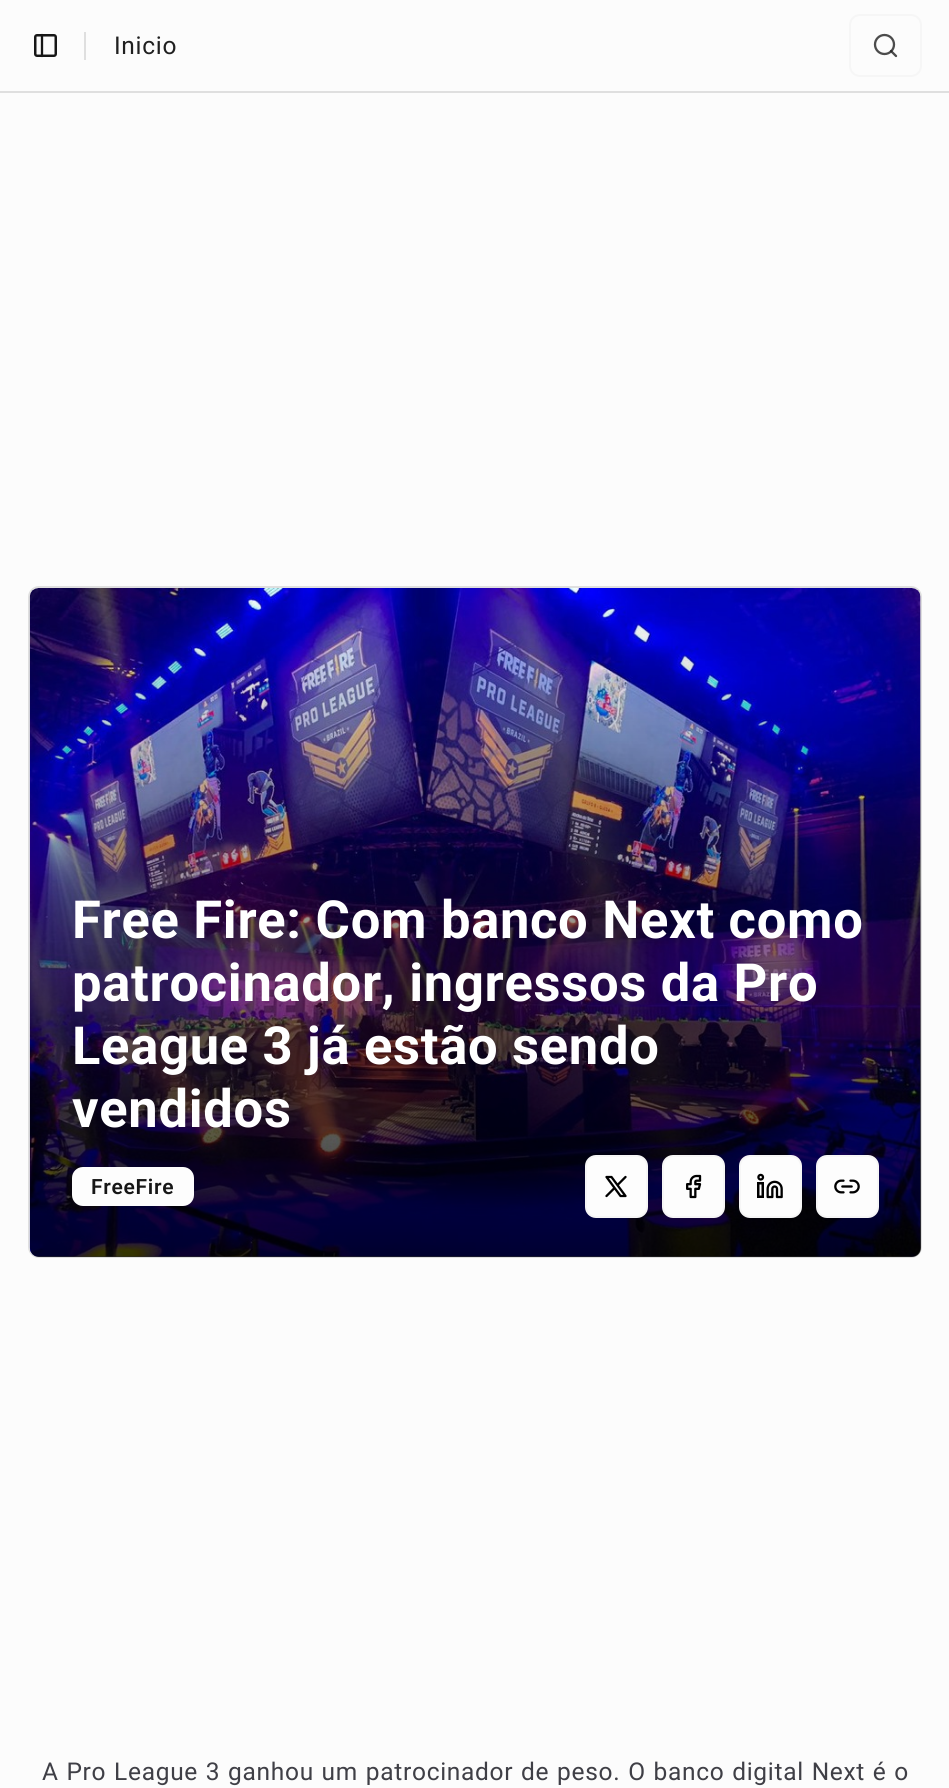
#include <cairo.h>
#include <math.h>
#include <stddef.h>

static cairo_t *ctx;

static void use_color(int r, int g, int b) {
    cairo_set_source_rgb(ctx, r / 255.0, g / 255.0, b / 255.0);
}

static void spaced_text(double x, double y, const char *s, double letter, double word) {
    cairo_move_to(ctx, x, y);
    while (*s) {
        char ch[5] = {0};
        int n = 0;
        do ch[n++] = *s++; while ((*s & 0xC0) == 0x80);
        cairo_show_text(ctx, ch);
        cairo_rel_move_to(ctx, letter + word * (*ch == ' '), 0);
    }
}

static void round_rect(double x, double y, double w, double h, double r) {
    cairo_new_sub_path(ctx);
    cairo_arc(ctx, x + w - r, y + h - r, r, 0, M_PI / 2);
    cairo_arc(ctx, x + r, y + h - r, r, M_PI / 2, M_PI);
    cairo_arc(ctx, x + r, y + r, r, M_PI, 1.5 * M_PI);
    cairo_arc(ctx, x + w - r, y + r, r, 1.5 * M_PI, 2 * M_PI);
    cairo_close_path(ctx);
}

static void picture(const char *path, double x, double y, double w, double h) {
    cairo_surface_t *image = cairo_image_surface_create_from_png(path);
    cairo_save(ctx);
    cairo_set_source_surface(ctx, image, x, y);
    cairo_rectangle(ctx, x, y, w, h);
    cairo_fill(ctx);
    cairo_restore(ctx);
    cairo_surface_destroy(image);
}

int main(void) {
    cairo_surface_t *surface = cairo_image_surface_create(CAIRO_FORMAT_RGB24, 949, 1788);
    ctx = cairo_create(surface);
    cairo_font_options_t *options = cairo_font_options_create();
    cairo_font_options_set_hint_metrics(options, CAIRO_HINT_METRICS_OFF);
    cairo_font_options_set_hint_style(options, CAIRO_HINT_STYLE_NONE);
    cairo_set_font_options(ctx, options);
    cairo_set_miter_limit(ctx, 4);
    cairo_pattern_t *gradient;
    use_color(252, 252, 252);
    cairo_paint(ctx);
    use_color(223, 223, 223);
    cairo_rectangle(ctx, 0, 91, 949, 2);
    cairo_fill(ctx);
    round_rect(35.25, 35.25, 20.5, 20.5, 1.75);
    use_color(23, 23, 23);
    cairo_set_line_width(ctx, 2.5);
    cairo_stroke(ctx);
    cairo_new_path(ctx);
    cairo_move_to(ctx, 42, 35);
    cairo_line_to(ctx, 42, 56);
    cairo_set_line_width(ctx, 2.3);
    cairo_set_line_cap(ctx, CAIRO_LINE_CAP_ROUND);
    cairo_set_line_join(ctx, CAIRO_LINE_JOIN_ROUND);
    cairo_stroke(ctx);
    use_color(223, 223, 223);
    cairo_rectangle(ctx, 84, 32, 2, 28);
    cairo_fill(ctx);
    cairo_select_font_face(ctx, "Roboto", CAIRO_FONT_SLANT_NORMAL, CAIRO_FONT_WEIGHT_NORMAL);
    cairo_set_font_size(ctx, 24.5);
    use_color(32, 32, 32);
    spaced_text(114, 54, "Inicio", 0.7, 0);
    round_rect(850, 15, 71, 61, 10);
    use_color(246, 246, 246);
    cairo_set_line_width(ctx, 2);
    cairo_set_line_cap(ctx, CAIRO_LINE_CAP_BUTT);
    cairo_set_line_join(ctx, CAIRO_LINE_JOIN_MITER);
    cairo_stroke(ctx);
    cairo_arc(ctx, 884.5, 44.5, 9.5, 0, 2 * M_PI);
    use_color(76, 76, 76);
    cairo_set_line_width(ctx, 2.3);
    cairo_stroke(ctx);
    cairo_new_path(ctx);
    cairo_move_to(ctx, 896, 56);
    cairo_line_to(ctx, 891, 51);
    cairo_set_source_rgba(ctx, 0.125, 0.125, 0.125, 0.8);
    cairo_set_line_cap(ctx, CAIRO_LINE_CAP_ROUND);
    cairo_set_line_join(ctx, CAIRO_LINE_JOIN_ROUND);
    cairo_stroke(ctx);
    round_rect(29, 587, 892, 670, 10);
    use_color(223, 223, 223);
    cairo_set_line_width(ctx, 2);
    cairo_set_line_cap(ctx, CAIRO_LINE_CAP_BUTT);
    cairo_set_line_join(ctx, CAIRO_LINE_JOIN_MITER);
    cairo_stroke(ctx);
    picture("img1.png", 29, 588, 892, 669);
    gradient = cairo_pattern_create_linear(475, 1260, 475, 588);
    cairo_pattern_add_color_stop_rgba(gradient, 0, 0, 0, 0, 0.8);
    cairo_pattern_add_color_stop_rgba(gradient, 1, 0, 0, 0, 0);
    cairo_set_source(ctx, gradient);
    cairo_pattern_destroy(gradient);
    round_rect(30, 588, 891, 669, 9);
    cairo_fill(ctx);
    cairo_select_font_face(ctx, "Roboto", CAIRO_FONT_SLANT_NORMAL, CAIRO_FONT_WEIGHT_BOLD);
    cairo_set_font_size(ctx, 52.5);
    use_color(255, 255, 255);
    spaced_text(72, 938, "Free Fire: Com banco Next como", 0.7, 0);
    spaced_text(72, 1001, "patrocinador, ingressos da Pro", 0.7, 0);
    spaced_text(72, 1064, "League 3 já estão sendo", 0.7, 0);
    spaced_text(72, 1127, "vendidos", 0.7, 0);
    use_color(253, 253, 253);
    round_rect(72, 1167, 122, 39, 11);
    cairo_fill(ctx);
    cairo_select_font_face(ctx, "Roboto SemiBold", CAIRO_FONT_SLANT_NORMAL, CAIRO_FONT_WEIGHT_NORMAL);
    cairo_set_font_size(ctx, 21);
    use_color(23, 23, 23);
    spaced_text(91, 1194, "FreeFire", 0.7, 0);
    use_color(253, 253, 253);
    round_rect(586, 1156, 61, 61, 10);
    cairo_fill_preserve(ctx);
    use_color(246, 246, 246);
    cairo_stroke(ctx);
    cairo_new_path(ctx);
    cairo_move_to(ctx, 606.5, 1177);
    cairo_line_to(ctx, 620.5, 1196);
    cairo_line_to(ctx, 625.5, 1196);
    cairo_line_to(ctx, 611.5, 1177);
    cairo_close_path(ctx);
    cairo_move_to(ctx, 606.5, 1196);
    cairo_line_to(ctx, 614.5, 1188);
    cairo_move_to(ctx, 617.5, 1185);
    cairo_line_to(ctx, 625.5, 1177);
    use_color(0, 0, 0);
    cairo_set_line_width(ctx, 2.3);
    cairo_set_line_cap(ctx, CAIRO_LINE_CAP_ROUND);
    cairo_set_line_join(ctx, CAIRO_LINE_JOIN_ROUND);
    cairo_stroke(ctx);
    use_color(253, 253, 253);
    round_rect(663, 1156, 61, 61, 10);
    cairo_fill_preserve(ctx);
    use_color(246, 246, 246);
    cairo_set_line_width(ctx, 2);
    cairo_set_line_cap(ctx, CAIRO_LINE_CAP_BUTT);
    cairo_set_line_join(ctx, CAIRO_LINE_JOIN_MITER);
    cairo_stroke(ctx);
    picture("img2.png", 686, 1174, 16, 25);
    use_color(253, 253, 253);
    round_rect(740, 1156, 61, 61, 10);
    cairo_fill_preserve(ctx);
    use_color(246, 246, 246);
    cairo_stroke(ctx);
    picture("img3.png", 757, 1173, 26, 26);
    use_color(253, 253, 253);
    round_rect(817, 1156, 61, 61, 10);
    cairo_fill_preserve(ctx);
    use_color(246, 246, 246);
    cairo_stroke(ctx);
    picture("img4.png", 834, 1179, 26, 15);
    cairo_select_font_face(ctx, "Roboto", CAIRO_FONT_SLANT_NORMAL, CAIRO_FONT_WEIGHT_NORMAL);
    cairo_set_font_size(ctx, 24.5);
    use_color(63, 63, 70);
    spaced_text(42, 1780, "A Pro League 3 ganhou um patrocinador de peso. O banco digital Next é o", 0.7, 1);
    cairo_surface_write_to_png(surface, "result.png");
    cairo_font_options_destroy(options);
    cairo_destroy(ctx);
    cairo_surface_destroy(surface);
    return 0;
}
